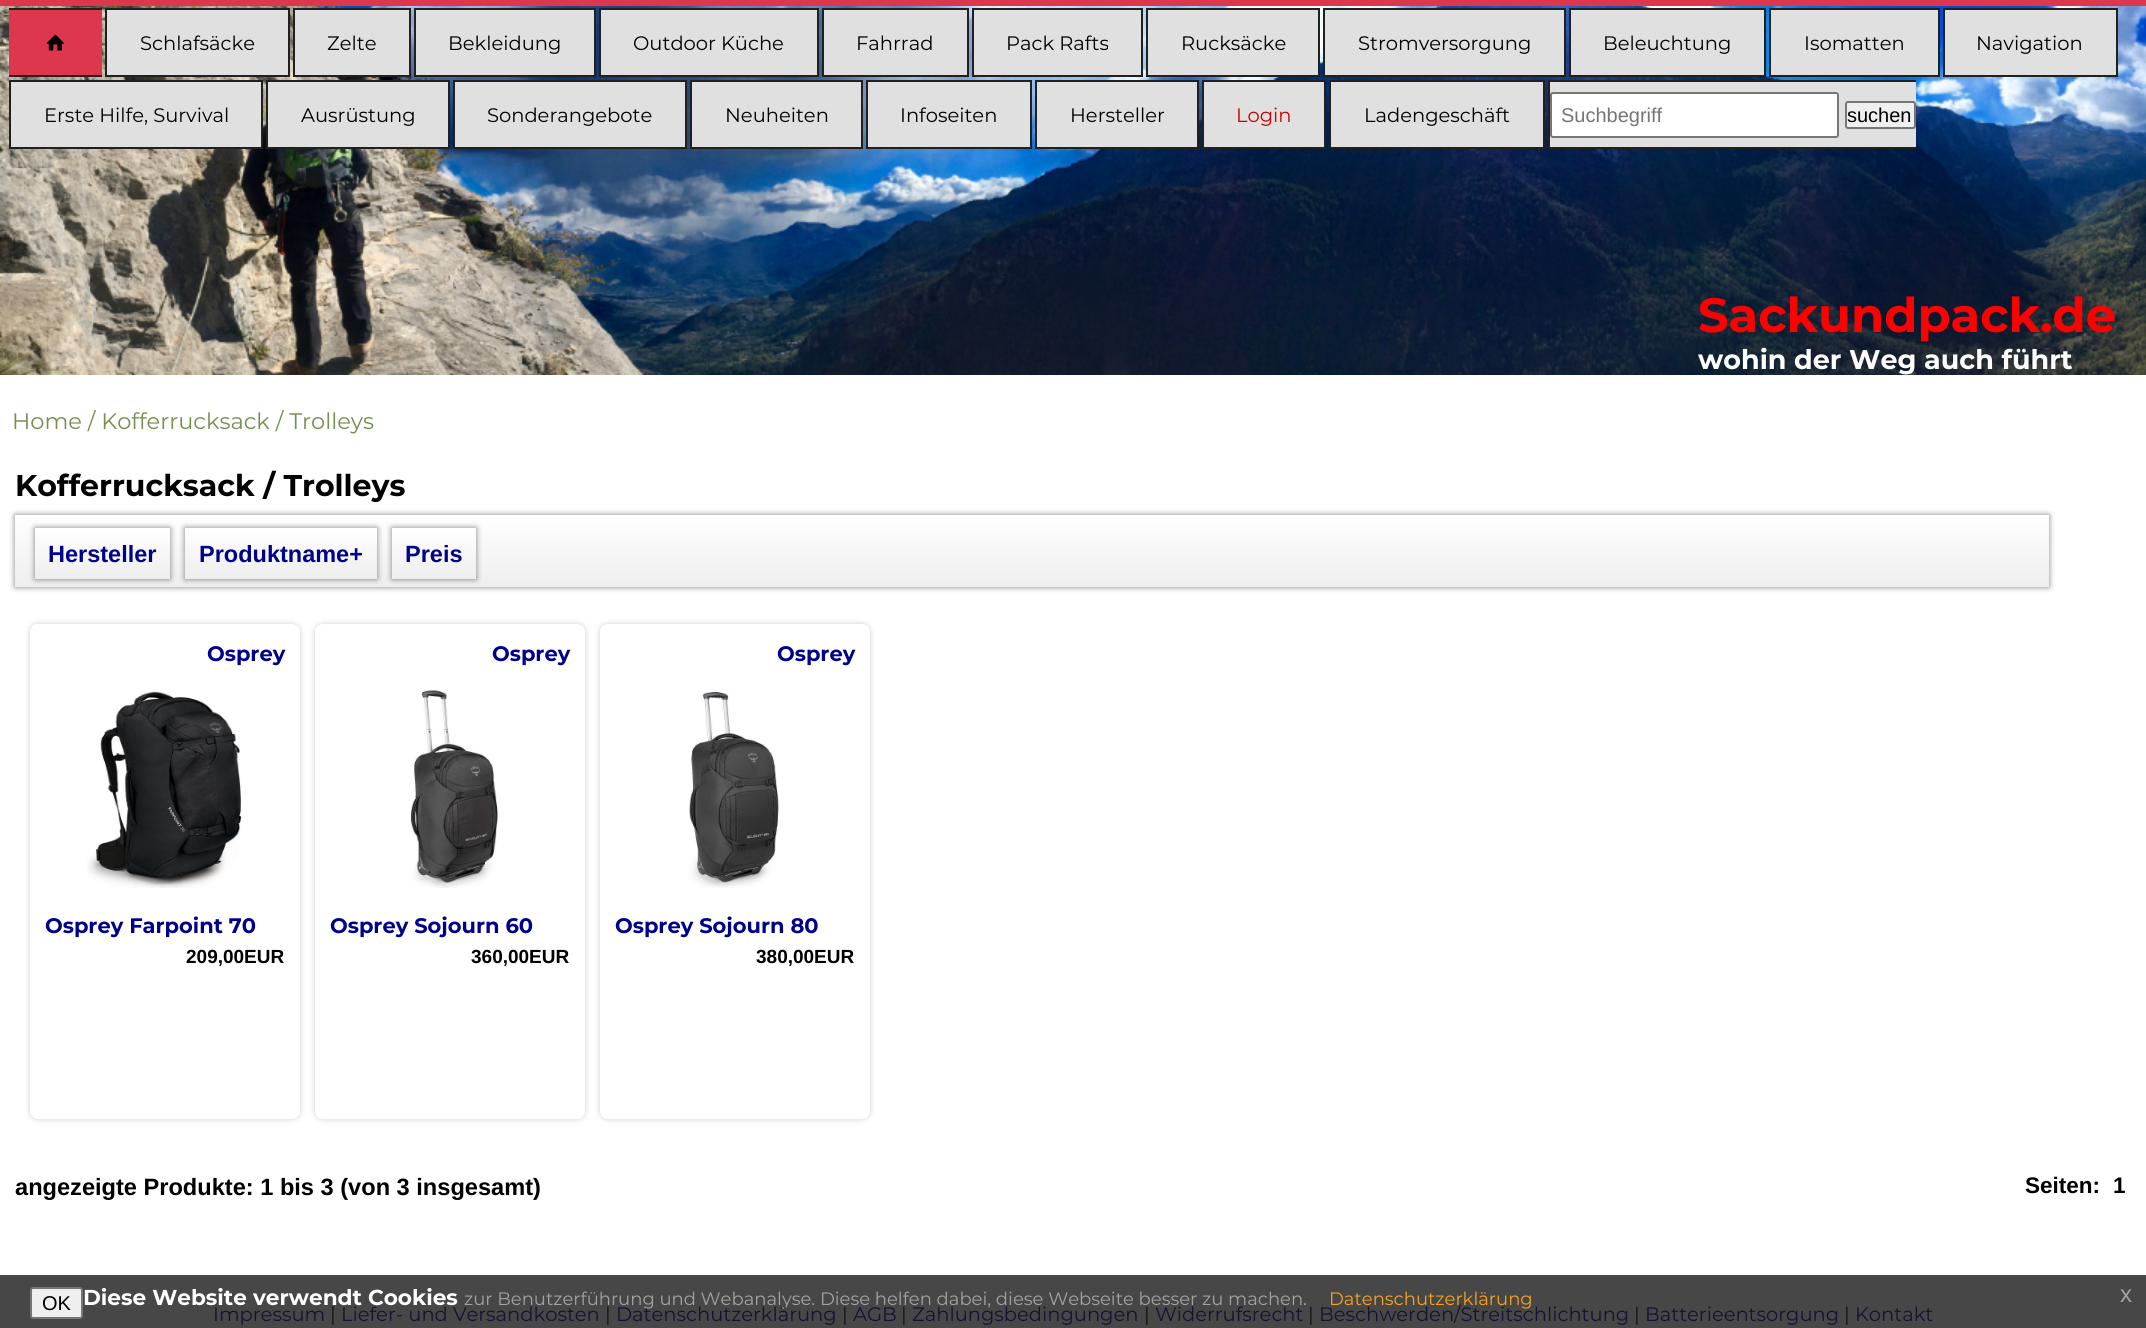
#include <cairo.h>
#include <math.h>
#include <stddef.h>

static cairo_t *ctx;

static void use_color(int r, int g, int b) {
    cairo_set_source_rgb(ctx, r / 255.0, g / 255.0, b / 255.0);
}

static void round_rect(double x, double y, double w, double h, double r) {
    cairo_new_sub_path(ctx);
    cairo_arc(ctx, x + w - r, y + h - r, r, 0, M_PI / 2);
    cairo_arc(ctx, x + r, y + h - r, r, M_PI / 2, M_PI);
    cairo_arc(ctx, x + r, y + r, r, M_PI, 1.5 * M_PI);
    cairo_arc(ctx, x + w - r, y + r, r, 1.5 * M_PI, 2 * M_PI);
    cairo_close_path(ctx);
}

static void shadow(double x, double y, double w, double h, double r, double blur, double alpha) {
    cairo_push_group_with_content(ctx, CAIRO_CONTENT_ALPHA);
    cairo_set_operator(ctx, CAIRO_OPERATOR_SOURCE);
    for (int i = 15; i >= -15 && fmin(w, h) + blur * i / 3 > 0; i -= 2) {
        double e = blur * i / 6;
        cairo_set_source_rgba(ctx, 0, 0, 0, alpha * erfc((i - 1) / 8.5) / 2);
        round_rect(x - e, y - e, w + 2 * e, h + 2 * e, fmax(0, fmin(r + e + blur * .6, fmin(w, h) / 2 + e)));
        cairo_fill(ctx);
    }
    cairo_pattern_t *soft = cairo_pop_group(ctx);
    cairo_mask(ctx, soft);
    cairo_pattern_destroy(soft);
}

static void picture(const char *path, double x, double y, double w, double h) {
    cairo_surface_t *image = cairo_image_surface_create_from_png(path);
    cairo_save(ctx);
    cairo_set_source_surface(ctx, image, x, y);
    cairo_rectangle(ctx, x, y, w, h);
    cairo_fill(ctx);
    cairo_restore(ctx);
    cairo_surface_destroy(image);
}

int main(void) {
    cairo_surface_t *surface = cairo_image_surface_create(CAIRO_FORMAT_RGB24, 2146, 1328);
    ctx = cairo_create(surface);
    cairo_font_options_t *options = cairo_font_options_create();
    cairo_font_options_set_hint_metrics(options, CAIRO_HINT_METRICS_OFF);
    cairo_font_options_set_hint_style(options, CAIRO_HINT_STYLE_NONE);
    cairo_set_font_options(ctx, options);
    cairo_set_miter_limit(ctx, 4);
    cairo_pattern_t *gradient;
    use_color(255, 255, 255);
    cairo_paint(ctx);
    use_color(71, 71, 71);
    cairo_rectangle(ctx, 0, 1275, 2146, 53);
    cairo_fill(ctx);
    picture("img1.png", 0, 6, 2146, 369);
    use_color(221, 55, 78);
    cairo_rectangle(ctx, 0, 0, 2146, 6);
    cairo_fill(ctx);
    cairo_rectangle(ctx, 9, 10, 93, 65);
    cairo_fill(ctx);
    use_color(32, 32, 32);
    cairo_rectangle(ctx, 9, 8, 93, 2);
    cairo_fill(ctx);
    cairo_rectangle(ctx, 9, 75, 93, 2);
    cairo_fill(ctx);
    picture("img2.png", 46, 34, 19, 17);
    use_color(224, 224, 224);
    cairo_rectangle(ctx, 106, 9, 183, 67);
    cairo_fill_preserve(ctx);
    use_color(32, 32, 32);
    cairo_stroke(ctx);
    cairo_select_font_face(ctx, "Montserrat", CAIRO_FONT_SLANT_NORMAL, CAIRO_FONT_WEIGHT_NORMAL);
    cairo_set_font_size(ctx, 19.5);
    use_color(0, 0, 0);
    cairo_move_to(ctx, 140, 50);
    cairo_show_text(ctx, "Schlafsäcke");
    use_color(224, 224, 224);
    cairo_rectangle(ctx, 294, 9, 116, 67);
    cairo_fill_preserve(ctx);
    use_color(32, 32, 32);
    cairo_stroke(ctx);
    use_color(0, 0, 0);
    cairo_move_to(ctx, 327, 50);
    cairo_show_text(ctx, "Zelte");
    use_color(224, 224, 224);
    cairo_rectangle(ctx, 415, 9, 180, 67);
    cairo_fill_preserve(ctx);
    use_color(32, 32, 32);
    cairo_stroke(ctx);
    use_color(0, 0, 0);
    cairo_move_to(ctx, 448, 50);
    cairo_show_text(ctx, "Bekleidung");
    use_color(224, 224, 224);
    cairo_rectangle(ctx, 600, 9, 218, 67);
    cairo_fill_preserve(ctx);
    use_color(32, 32, 32);
    cairo_stroke(ctx);
    use_color(0, 0, 0);
    cairo_move_to(ctx, 633, 50);
    cairo_show_text(ctx, "Outdoor Küche");
    use_color(224, 224, 224);
    cairo_rectangle(ctx, 823, 9, 145, 67);
    cairo_fill_preserve(ctx);
    use_color(32, 32, 32);
    cairo_stroke(ctx);
    use_color(0, 0, 0);
    cairo_move_to(ctx, 856, 50);
    cairo_show_text(ctx, "Fahrrad");
    use_color(224, 224, 224);
    cairo_rectangle(ctx, 973, 9, 169, 67);
    cairo_fill_preserve(ctx);
    use_color(32, 32, 32);
    cairo_stroke(ctx);
    use_color(0, 0, 0);
    cairo_move_to(ctx, 1006, 50);
    cairo_show_text(ctx, "Pack Rafts");
    use_color(224, 224, 224);
    cairo_rectangle(ctx, 1147, 9, 172, 67);
    cairo_fill_preserve(ctx);
    use_color(32, 32, 32);
    cairo_stroke(ctx);
    use_color(0, 0, 0);
    cairo_move_to(ctx, 1181, 50);
    cairo_show_text(ctx, "Rucksäcke");
    use_color(224, 224, 224);
    cairo_rectangle(ctx, 1324, 9, 241, 67);
    cairo_fill_preserve(ctx);
    use_color(32, 32, 32);
    cairo_stroke(ctx);
    use_color(0, 0, 0);
    cairo_move_to(ctx, 1358, 50);
    cairo_show_text(ctx, "Stromversorgung");
    use_color(224, 224, 224);
    cairo_rectangle(ctx, 1570, 9, 195, 67);
    cairo_fill_preserve(ctx);
    use_color(32, 32, 32);
    cairo_stroke(ctx);
    use_color(0, 0, 0);
    cairo_move_to(ctx, 1603, 50);
    cairo_show_text(ctx, "Beleuchtung");
    use_color(224, 224, 224);
    cairo_rectangle(ctx, 1770, 9, 169, 67);
    cairo_fill_preserve(ctx);
    use_color(32, 32, 32);
    cairo_stroke(ctx);
    use_color(0, 0, 0);
    cairo_move_to(ctx, 1804, 50);
    cairo_show_text(ctx, "Isomatten");
    use_color(224, 224, 224);
    cairo_rectangle(ctx, 1944, 9, 173, 67);
    cairo_fill_preserve(ctx);
    use_color(32, 32, 32);
    cairo_stroke(ctx);
    use_color(0, 0, 0);
    cairo_move_to(ctx, 1976, 50);
    cairo_show_text(ctx, "Navigation");
    use_color(224, 224, 224);
    cairo_rectangle(ctx, 10, 81, 252, 67);
    cairo_fill_preserve(ctx);
    use_color(32, 32, 32);
    cairo_stroke(ctx);
    use_color(0, 0, 0);
    cairo_move_to(ctx, 44, 122);
    cairo_show_text(ctx, "Erste Hilfe, Survival");
    use_color(224, 224, 224);
    cairo_rectangle(ctx, 267, 81, 182, 67);
    cairo_fill_preserve(ctx);
    use_color(32, 32, 32);
    cairo_stroke(ctx);
    use_color(0, 0, 0);
    cairo_move_to(ctx, 301, 122);
    cairo_show_text(ctx, "Ausrüstung");
    use_color(224, 224, 224);
    cairo_rectangle(ctx, 454, 81, 232, 67);
    cairo_fill_preserve(ctx);
    use_color(32, 32, 32);
    cairo_stroke(ctx);
    use_color(0, 0, 0);
    cairo_move_to(ctx, 487, 122);
    cairo_show_text(ctx, "Sonderangebote");
    use_color(224, 224, 224);
    cairo_rectangle(ctx, 691, 81, 171, 67);
    cairo_fill_preserve(ctx);
    use_color(32, 32, 32);
    cairo_stroke(ctx);
    use_color(0, 0, 0);
    cairo_move_to(ctx, 725, 122);
    cairo_show_text(ctx, "Neuheiten");
    use_color(224, 224, 224);
    cairo_rectangle(ctx, 867, 81, 164, 67);
    cairo_fill_preserve(ctx);
    use_color(32, 32, 32);
    cairo_stroke(ctx);
    use_color(0, 0, 0);
    cairo_move_to(ctx, 900, 122);
    cairo_show_text(ctx, "Infoseiten");
    use_color(224, 224, 224);
    cairo_rectangle(ctx, 1036, 81, 162, 67);
    cairo_fill_preserve(ctx);
    use_color(32, 32, 32);
    cairo_stroke(ctx);
    use_color(0, 0, 0);
    cairo_move_to(ctx, 1070, 122);
    cairo_show_text(ctx, "Hersteller");
    use_color(224, 224, 224);
    cairo_rectangle(ctx, 1203, 81, 122, 67);
    cairo_fill_preserve(ctx);
    use_color(32, 32, 32);
    cairo_stroke(ctx);
    use_color(204, 0, 0);
    cairo_move_to(ctx, 1236, 122);
    cairo_show_text(ctx, "Login");
    use_color(224, 224, 224);
    cairo_rectangle(ctx, 1330, 81, 214, 67);
    cairo_fill_preserve(ctx);
    use_color(32, 32, 32);
    cairo_stroke(ctx);
    use_color(0, 0, 0);
    cairo_move_to(ctx, 1364, 122);
    cairo_show_text(ctx, "Ladengeschäft");
    use_color(224, 224, 224);
    cairo_rectangle(ctx, 1550, 82, 366, 65);
    cairo_fill(ctx);
    use_color(32, 32, 32);
    cairo_rectangle(ctx, 1548, 80, 368, 2);
    cairo_fill(ctx);
    cairo_rectangle(ctx, 1548, 147, 368, 2);
    cairo_fill(ctx);
    cairo_rectangle(ctx, 1548, 80, 2, 69);
    cairo_fill(ctx);
    use_color(255, 255, 255);
    round_rect(1551, 93, 287, 44, 2);
    cairo_fill_preserve(ctx);
    use_color(118, 118, 118);
    cairo_stroke(ctx);
    cairo_select_font_face(ctx, "Liberation Sans", CAIRO_FONT_SLANT_NORMAL, CAIRO_FONT_WEIGHT_NORMAL);
    cairo_set_font_size(ctx, 20);
    use_color(117, 117, 117);
    cairo_move_to(ctx, 1561, 122);
    cairo_show_text(ctx, "Suchbegriff");
    use_color(239, 239, 239);
    round_rect(1846, 102, 69, 26, 2);
    cairo_fill_preserve(ctx);
    use_color(118, 118, 118);
    cairo_stroke(ctx);
    use_color(0, 0, 0);
    cairo_move_to(ctx, 1847, 122);
    cairo_show_text(ctx, "suchen");
    cairo_select_font_face(ctx, "Montserrat", CAIRO_FONT_SLANT_NORMAL, CAIRO_FONT_WEIGHT_BOLD);
    cairo_set_font_size(ctx, 48);
    use_color(255, 0, 0);
    cairo_move_to(ctx, 1698, 332);
    cairo_show_text(ctx, "Sackundpack.de");
    cairo_set_font_size(ctx, 27);
    use_color(255, 255, 255);
    cairo_move_to(ctx, 1698, 369);
    cairo_show_text(ctx, "wohin der Weg auch führt");
    cairo_select_font_face(ctx, "Montserrat", CAIRO_FONT_SLANT_NORMAL, CAIRO_FONT_WEIGHT_NORMAL);
    cairo_set_font_size(ctx, 22.5);
    use_color(117, 143, 79);
    cairo_move_to(ctx, 12, 429);
    cairo_show_text(ctx, "Home / Kofferrucksack / Trolleys");
    cairo_select_font_face(ctx, "Montserrat", CAIRO_FONT_SLANT_NORMAL, CAIRO_FONT_WEIGHT_BOLD);
    cairo_set_font_size(ctx, 30);
    use_color(0, 0, 0);
    cairo_move_to(ctx, 15, 496);
    cairo_show_text(ctx, "Kofferrucksack / Trolleys");
    use_color(0, 0, 0);
    shadow(15, 515, 2034, 72, 0, 3, 0.5);
    gradient = cairo_pattern_create_linear(1032, 514, 1032, 587);
    cairo_pattern_add_color_stop_rgba(gradient, 0, 1, 1, 1, 1);
    cairo_pattern_add_color_stop_rgba(gradient, 1, 0.933, 0.933, 0.933, 1);
    cairo_set_source(ctx, gradient);
    cairo_pattern_destroy(gradient);
    cairo_rectangle(ctx, 15, 515, 2034, 72);
    cairo_fill(ctx);
    use_color(0, 0, 0);
    shadow(35, 528, 135, 51, 0, 3, 0.5);
    gradient = cairo_pattern_create_linear(102, 528, 102, 579);
    cairo_pattern_add_color_stop_rgba(gradient, 0, 1, 1, 1, 1);
    cairo_pattern_add_color_stop_rgba(gradient, 1, 0.933, 0.933, 0.933, 1);
    cairo_set_source(ctx, gradient);
    cairo_pattern_destroy(gradient);
    cairo_rectangle(ctx, 35, 528, 135, 51);
    cairo_fill(ctx);
    cairo_select_font_face(ctx, "Liberation Sans", CAIRO_FONT_SLANT_NORMAL, CAIRO_FONT_WEIGHT_BOLD);
    cairo_set_font_size(ctx, 23.5);
    use_color(0, 0, 139);
    cairo_move_to(ctx, 48, 562);
    cairo_show_text(ctx, "Hersteller");
    use_color(0, 0, 0);
    shadow(185, 528, 192, 51, 0, 3, 0.5);
    gradient = cairo_pattern_create_linear(281, 528, 281, 579);
    cairo_pattern_add_color_stop_rgba(gradient, 0, 1, 1, 1, 1);
    cairo_pattern_add_color_stop_rgba(gradient, 1, 0.933, 0.933, 0.933, 1);
    cairo_set_source(ctx, gradient);
    cairo_pattern_destroy(gradient);
    cairo_rectangle(ctx, 185, 528, 192, 51);
    cairo_fill(ctx);
    use_color(0, 0, 139);
    cairo_move_to(ctx, 199, 562);
    cairo_show_text(ctx, "Produktname+");
    use_color(0, 0, 0);
    shadow(392, 528, 84, 51, 0, 3, 0.5);
    gradient = cairo_pattern_create_linear(434, 528, 434, 579);
    cairo_pattern_add_color_stop_rgba(gradient, 0, 1, 1, 1, 1);
    cairo_pattern_add_color_stop_rgba(gradient, 1, 0.933, 0.933, 0.933, 1);
    cairo_set_source(ctx, gradient);
    cairo_pattern_destroy(gradient);
    cairo_rectangle(ctx, 392, 528, 84, 51);
    cairo_fill(ctx);
    use_color(0, 0, 139);
    cairo_move_to(ctx, 405, 562);
    cairo_show_text(ctx, "Preis");
    use_color(0, 0, 0);
    shadow(30, 624, 270, 495, 8, 3, 0.2);
    use_color(255, 255, 255);
    round_rect(30, 624, 270, 495, 8);
    cairo_fill(ctx);
    cairo_select_font_face(ctx, "Montserrat", CAIRO_FONT_SLANT_NORMAL, CAIRO_FONT_WEIGHT_BOLD);
    cairo_set_font_size(ctx, 21);
    use_color(0, 0, 139);
    cairo_move_to(ctx, 207, 661);
    cairo_show_text(ctx, "Osprey");
    picture("img3.png", 87, 691, 155, 197);
    cairo_move_to(ctx, 45, 933);
    cairo_show_text(ctx, "Osprey Farpoint 70");
    cairo_select_font_face(ctx, "Liberation Sans", CAIRO_FONT_SLANT_NORMAL, CAIRO_FONT_WEIGHT_BOLD);
    cairo_set_font_size(ctx, 19);
    use_color(0, 0, 0);
    cairo_move_to(ctx, 186, 963);
    cairo_show_text(ctx, "209,00EUR");
    use_color(0, 0, 0);
    shadow(315, 624, 270, 495, 8, 3, 0.2);
    use_color(255, 255, 255);
    round_rect(315, 624, 270, 495, 8);
    cairo_fill(ctx);
    cairo_select_font_face(ctx, "Montserrat", CAIRO_FONT_SLANT_NORMAL, CAIRO_FONT_WEIGHT_BOLD);
    cairo_set_font_size(ctx, 21);
    use_color(0, 0, 139);
    cairo_move_to(ctx, 492, 661);
    cairo_show_text(ctx, "Osprey");
    picture("img4.png", 410, 690, 88, 198);
    cairo_move_to(ctx, 330, 933);
    cairo_show_text(ctx, "Osprey Sojourn 60");
    cairo_select_font_face(ctx, "Liberation Sans", CAIRO_FONT_SLANT_NORMAL, CAIRO_FONT_WEIGHT_BOLD);
    cairo_set_font_size(ctx, 19);
    use_color(0, 0, 0);
    cairo_move_to(ctx, 471, 963);
    cairo_show_text(ctx, "360,00EUR");
    use_color(0, 0, 0);
    shadow(600, 624, 270, 495, 8, 3, 0.2);
    use_color(255, 255, 255);
    round_rect(600, 624, 270, 495, 8);
    cairo_fill(ctx);
    cairo_select_font_face(ctx, "Montserrat", CAIRO_FONT_SLANT_NORMAL, CAIRO_FONT_WEIGHT_BOLD);
    cairo_set_font_size(ctx, 21);
    use_color(0, 0, 139);
    cairo_move_to(ctx, 777, 661);
    cairo_show_text(ctx, "Osprey");
    picture("img5.png", 688, 690, 91, 198);
    cairo_move_to(ctx, 615, 933);
    cairo_show_text(ctx, "Osprey Sojourn 80");
    cairo_select_font_face(ctx, "Liberation Sans", CAIRO_FONT_SLANT_NORMAL, CAIRO_FONT_WEIGHT_BOLD);
    cairo_set_font_size(ctx, 19);
    use_color(0, 0, 0);
    cairo_move_to(ctx, 756, 963);
    cairo_show_text(ctx, "380,00EUR");
    cairo_set_font_size(ctx, 23.6);
    cairo_move_to(ctx, 15, 1195);
    cairo_show_text(ctx, "angezeigte Produkte: 1 bis 3 (von 3 insgesamt)");
    cairo_set_font_size(ctx, 22.5);
    cairo_move_to(ctx, 2025, 1193);
    cairo_show_text(ctx, "Seiten:");
    cairo_move_to(ctx, 2113, 1193);
    cairo_show_text(ctx, "1");
    cairo_select_font_face(ctx, "Montserrat", CAIRO_FONT_SLANT_NORMAL, CAIRO_FONT_WEIGHT_BOLD);
    cairo_set_font_size(ctx, 21.6);
    use_color(255, 255, 255);
    cairo_move_to(ctx, 83, 1305);
    cairo_show_text(ctx, "Diese Website verwendt Cookies");
    cairo_select_font_face(ctx, "Liberation Sans", CAIRO_FONT_SLANT_NORMAL, CAIRO_FONT_WEIGHT_NORMAL);
    cairo_set_font_size(ctx, 24);
    use_color(162, 162, 162);
    cairo_move_to(ctx, 2120, 1302);
    cairo_show_text(ctx, "x");
    use_color(239, 239, 239);
    round_rect(31, 1288, 51, 30, 2);
    cairo_fill_preserve(ctx);
    use_color(118, 118, 118);
    cairo_stroke(ctx);
    cairo_set_font_size(ctx, 20);
    use_color(0, 0, 0);
    cairo_move_to(ctx, 42, 1310);
    cairo_show_text(ctx, "OK");
    cairo_select_font_face(ctx, "Montserrat", CAIRO_FONT_SLANT_NORMAL, CAIRO_FONT_WEIGHT_NORMAL);
    cairo_set_font_size(ctx, 18);
    use_color(246, 162, 29);
    cairo_move_to(ctx, 1329, 1305);
    cairo_show_text(ctx, "Datenschutzerklärung");
    use_color(162, 162, 162);
    cairo_move_to(ctx, 464, 1305);
    cairo_show_text(ctx, "zur Benutzerführung und Webanalyse. Diese helfen dabei, diese Webseite besser zu machen.");
    cairo_set_font_size(ctx, 19.5);
    use_color(20, 20, 48);
    cairo_move_to(ctx, 213, 1321);
    cairo_show_text(ctx, "Impressum");
    use_color(20, 20, 20);
    cairo_move_to(ctx, 330, 1321);
    cairo_show_text(ctx, "|");
    use_color(20, 20, 48);
    cairo_move_to(ctx, 341, 1321);
    cairo_show_text(ctx, "Liefer- und Versandkosten");
    use_color(20, 20, 20);
    cairo_move_to(ctx, 605, 1321);
    cairo_show_text(ctx, "|");
    use_color(20, 20, 48);
    cairo_move_to(ctx, 616, 1321);
    cairo_show_text(ctx, "Datenschutzerklärung");
    use_color(20, 20, 20);
    cairo_move_to(ctx, 842, 1321);
    cairo_show_text(ctx, "|");
    use_color(20, 20, 48);
    cairo_move_to(ctx, 853, 1321);
    cairo_show_text(ctx, "AGB");
    use_color(20, 20, 20);
    cairo_move_to(ctx, 901, 1321);
    cairo_show_text(ctx, "|");
    use_color(20, 20, 48);
    cairo_move_to(ctx, 912, 1321);
    cairo_show_text(ctx, "Zahlungsbedingungen");
    use_color(20, 20, 20);
    cairo_move_to(ctx, 1144, 1321);
    cairo_show_text(ctx, "|");
    use_color(20, 20, 48);
    cairo_move_to(ctx, 1155, 1321);
    cairo_show_text(ctx, "Widerrufsrecht");
    use_color(20, 20, 20);
    cairo_move_to(ctx, 1308, 1321);
    cairo_show_text(ctx, "|");
    use_color(20, 20, 48);
    cairo_move_to(ctx, 1319, 1321);
    cairo_show_text(ctx, "Beschwerden/Streitschlichtung");
    use_color(20, 20, 20);
    cairo_move_to(ctx, 1634, 1321);
    cairo_show_text(ctx, "|");
    use_color(20, 20, 48);
    cairo_move_to(ctx, 1645, 1321);
    cairo_show_text(ctx, "Batterieentsorgung");
    use_color(20, 20, 20);
    cairo_move_to(ctx, 1844, 1321);
    cairo_show_text(ctx, "|");
    use_color(20, 20, 48);
    cairo_move_to(ctx, 1855, 1321);
    cairo_show_text(ctx, "Kontakt");
    cairo_surface_write_to_png(surface, "result.png");
    cairo_font_options_destroy(options);
    cairo_destroy(ctx);
    cairo_surface_destroy(surface);
    return 0;
}
